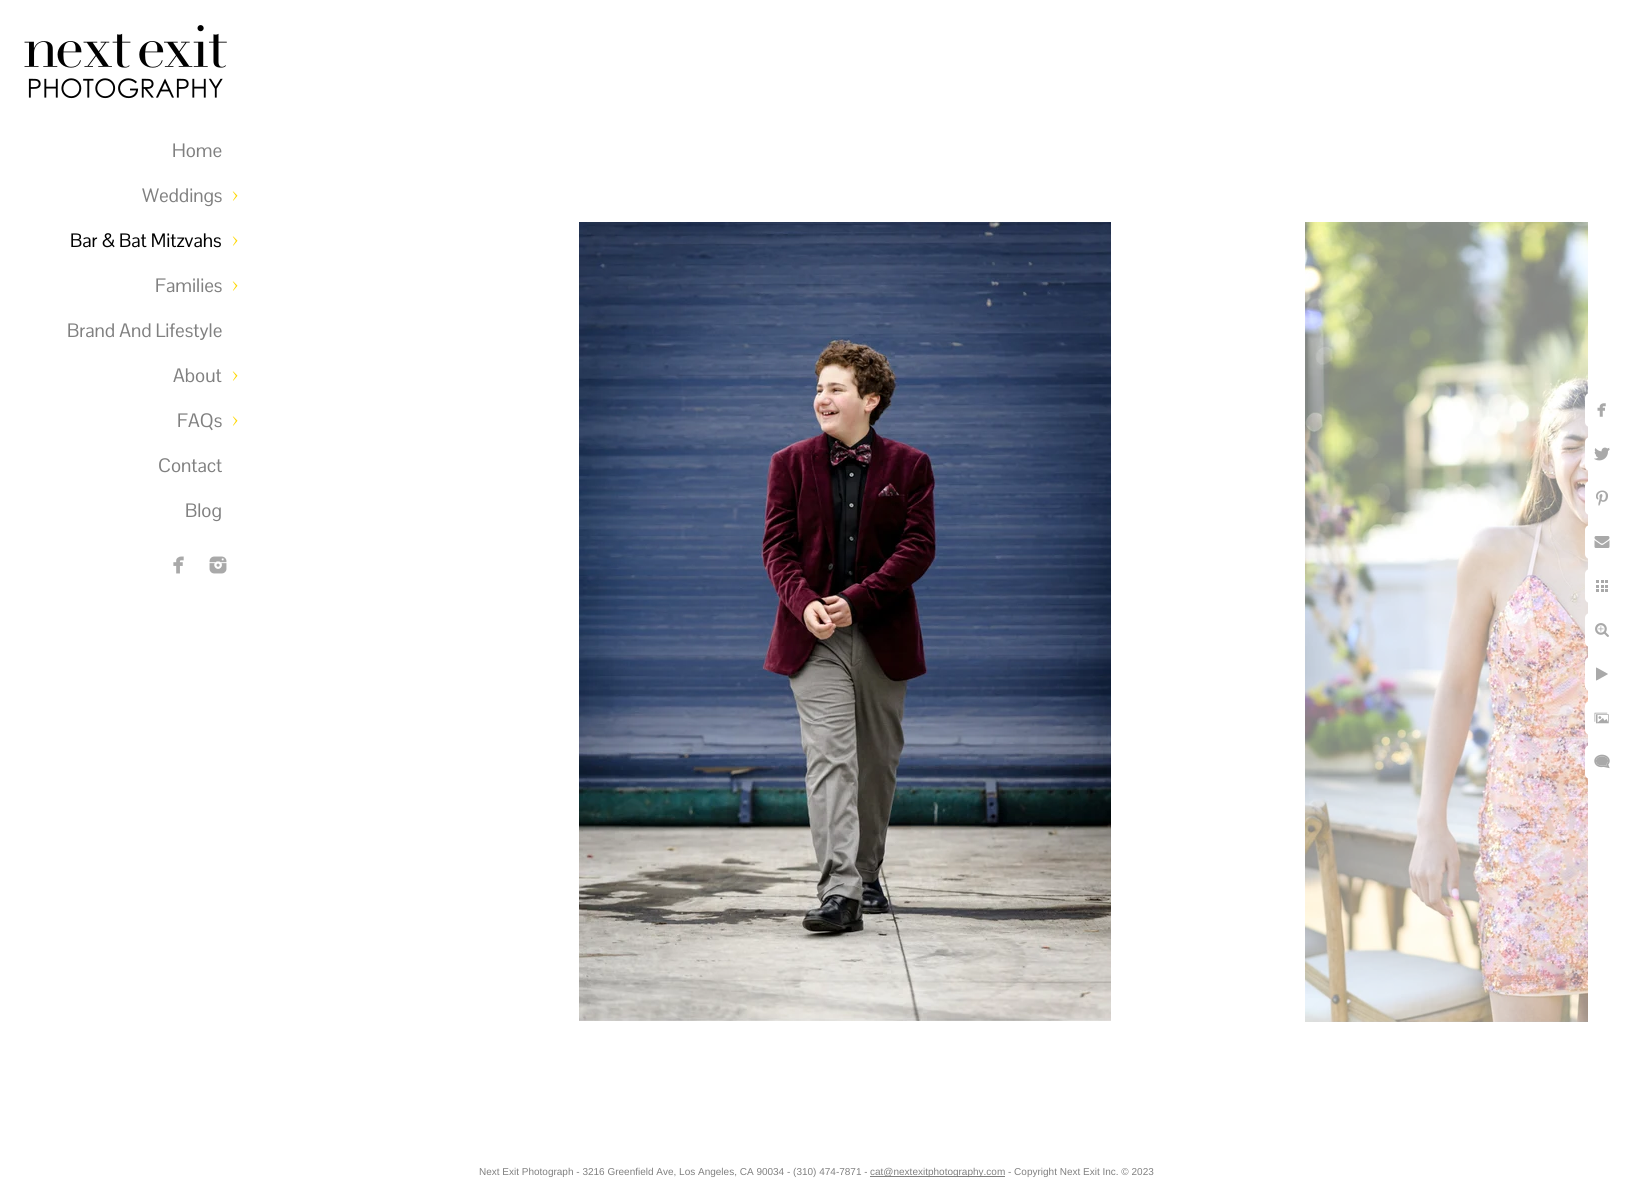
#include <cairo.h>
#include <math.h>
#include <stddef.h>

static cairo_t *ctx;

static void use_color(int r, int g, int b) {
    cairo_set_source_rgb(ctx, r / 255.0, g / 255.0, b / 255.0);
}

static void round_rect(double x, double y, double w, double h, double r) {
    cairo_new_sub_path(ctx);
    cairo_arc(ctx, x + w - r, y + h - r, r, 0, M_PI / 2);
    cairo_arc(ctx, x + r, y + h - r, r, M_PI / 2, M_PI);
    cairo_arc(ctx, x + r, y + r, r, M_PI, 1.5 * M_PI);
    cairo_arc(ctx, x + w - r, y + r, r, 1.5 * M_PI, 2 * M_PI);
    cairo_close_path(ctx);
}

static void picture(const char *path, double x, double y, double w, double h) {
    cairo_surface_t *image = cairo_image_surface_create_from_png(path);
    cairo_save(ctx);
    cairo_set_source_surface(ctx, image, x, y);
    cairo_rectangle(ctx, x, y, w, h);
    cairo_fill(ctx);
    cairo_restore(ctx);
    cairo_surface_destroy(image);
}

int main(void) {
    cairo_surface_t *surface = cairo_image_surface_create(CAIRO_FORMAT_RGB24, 1629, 1192);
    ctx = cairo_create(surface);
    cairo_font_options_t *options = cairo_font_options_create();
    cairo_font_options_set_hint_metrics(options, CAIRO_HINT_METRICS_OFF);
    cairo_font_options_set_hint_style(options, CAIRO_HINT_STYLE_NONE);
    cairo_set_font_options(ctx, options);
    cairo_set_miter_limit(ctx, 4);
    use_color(255, 255, 255);
    cairo_paint(ctx);
    picture("img1.png", 24, 25, 203, 74);
    cairo_select_font_face(ctx, "Pontano Sans", CAIRO_FONT_SLANT_NORMAL, CAIRO_FONT_WEIGHT_NORMAL);
    cairo_set_font_size(ctx, 19);
    use_color(128, 128, 128);
    cairo_move_to(ctx, 172, 157);
    cairo_show_text(ctx, "Home");
    cairo_move_to(ctx, 142, 202);
    cairo_show_text(ctx, "Weddings");
    picture("img2.png", 232, 191, 6, 10);
    use_color(0, 0, 0);
    cairo_move_to(ctx, 70, 247);
    cairo_show_text(ctx, "Bar & Bat Mitzvahs");
    picture("img2.png", 232, 236, 6, 10);
    use_color(128, 128, 128);
    cairo_move_to(ctx, 155, 292);
    cairo_show_text(ctx, "Families");
    picture("img2.png", 232, 281, 6, 10);
    cairo_move_to(ctx, 67, 337);
    cairo_show_text(ctx, "Brand And Lifestyle");
    cairo_move_to(ctx, 173, 382);
    cairo_show_text(ctx, "About");
    picture("img2.png", 232, 371, 6, 10);
    cairo_move_to(ctx, 177, 427);
    cairo_show_text(ctx, "FAQs");
    picture("img2.png", 232, 416, 6, 10);
    cairo_move_to(ctx, 158, 472);
    cairo_show_text(ctx, "Contact");
    cairo_move_to(ctx, 185, 517);
    cairo_show_text(ctx, "Blog");
    picture("img3.png", 173, 556, 11, 18);
    picture("img4.png", 209, 556, 18, 18);
    picture("img5.png", 579, 222, 532, 799);
    picture("img6.png", 1305, 222, 283, 800);
    use_color(255, 255, 255);
    round_rect(1585, 393, 34, 34, 5);
    cairo_fill(ctx);
    picture("img7.png", 1597, 403, 9, 14);
    round_rect(1585, 437, 34, 34, 5);
    cairo_fill(ctx);
    picture("img8.png", 1594, 447, 16, 14);
    round_rect(1585, 481, 34, 34, 5);
    cairo_fill(ctx);
    picture("img9.png", 1596, 490, 12, 16);
    round_rect(1585, 525, 34, 34, 5);
    cairo_fill(ctx);
    picture("img10.png", 1594, 536, 16, 12);
    round_rect(1585, 569, 34, 34, 5);
    cairo_fill(ctx);
    picture("img11.png", 1596, 580, 12, 12);
    round_rect(1585, 613, 34, 34, 5);
    cairo_fill(ctx);
    picture("img12.png", 1595, 623, 14, 14);
    round_rect(1585, 657, 34, 34, 5);
    cairo_fill(ctx);
    picture("img13.png", 1596, 667, 12, 14);
    round_rect(1585, 701, 34, 34, 5);
    cairo_fill(ctx);
    picture("img14.png", 1594, 712, 15, 12);
    round_rect(1585, 745, 34, 34, 5);
    cairo_fill(ctx);
    picture("img15.png", 1594, 754, 16, 15);
    cairo_select_font_face(ctx, "Liberation Sans", CAIRO_FONT_SLANT_NORMAL, CAIRO_FONT_WEIGHT_NORMAL);
    cairo_set_font_size(ctx, 10);
    use_color(128, 128, 128);
    cairo_move_to(ctx, 479, 1175);
    cairo_show_text(ctx, "Next Exit Photograph - 3216 Greenfield Ave, Los Angeles, CA 90034 - (310) 474-7871 -");
    cairo_rectangle(ctx, 870, 1176, 135, 1);
    cairo_fill(ctx);
    cairo_move_to(ctx, 870, 1175);
    cairo_show_text(ctx, "cat@nextexitphotography.com - Copyright Next Exit Inc. © 2023");
    cairo_surface_write_to_png(surface, "result.png");
    cairo_font_options_destroy(options);
    cairo_destroy(ctx);
    cairo_surface_destroy(surface);
    return 0;
}
